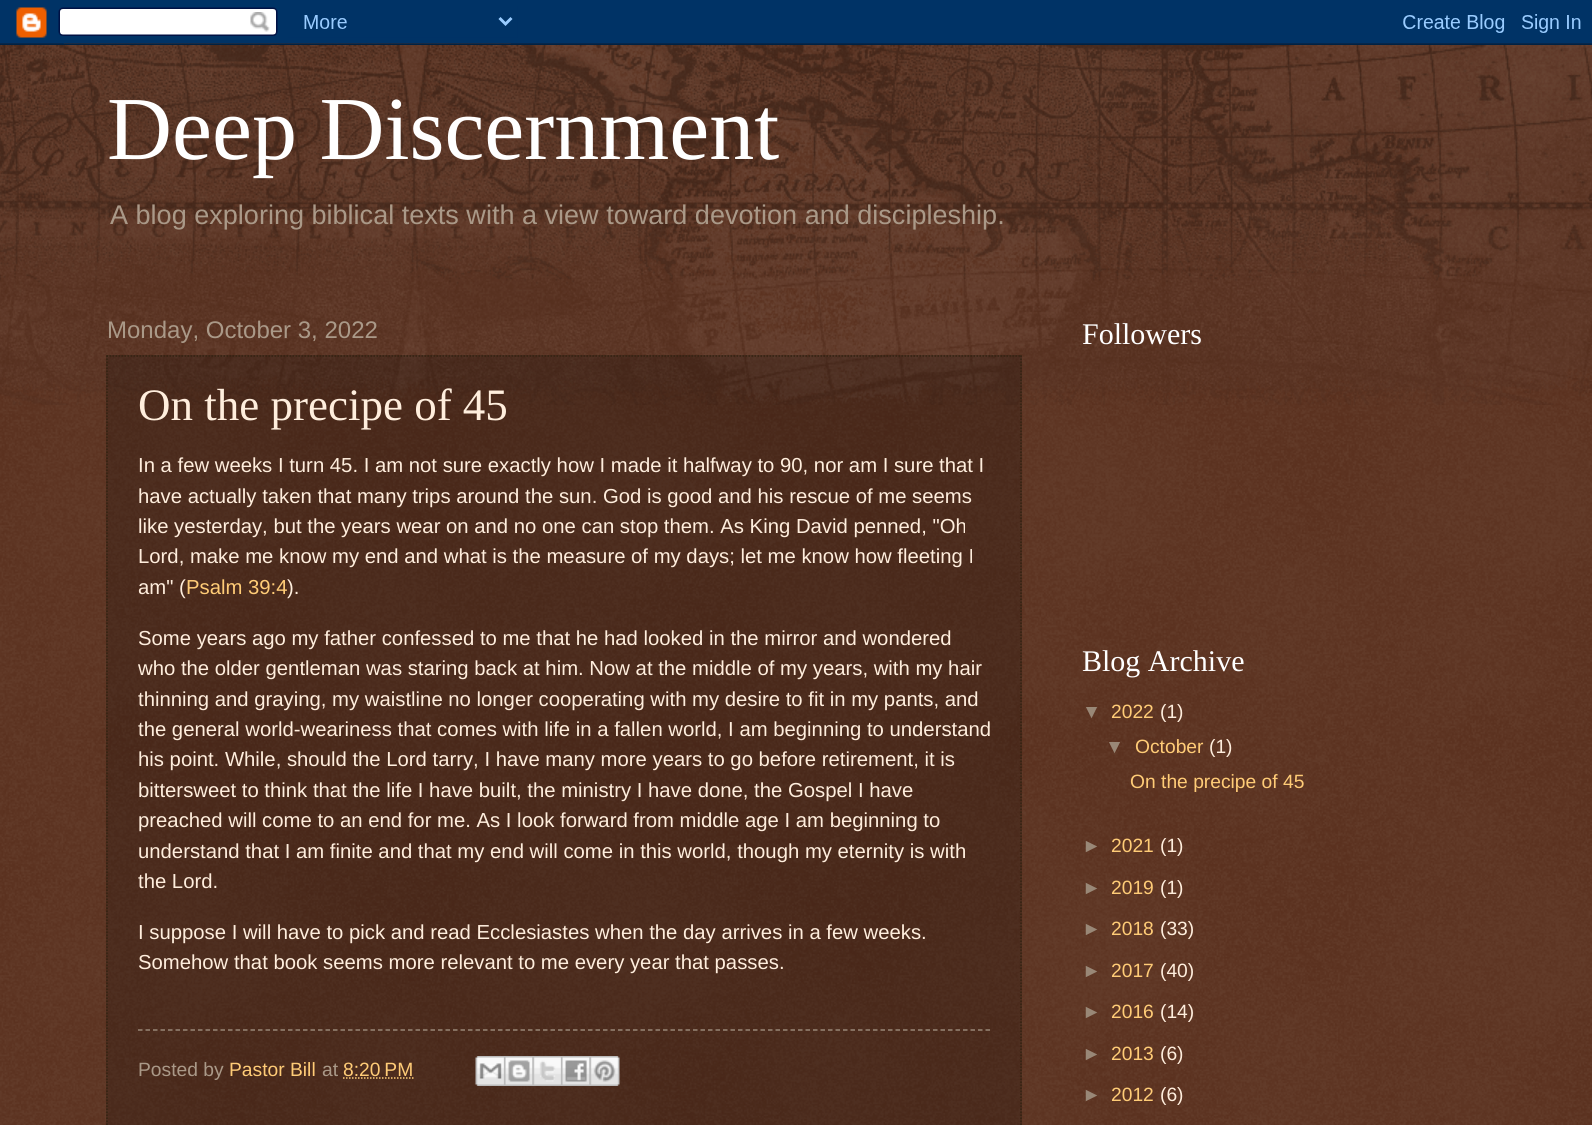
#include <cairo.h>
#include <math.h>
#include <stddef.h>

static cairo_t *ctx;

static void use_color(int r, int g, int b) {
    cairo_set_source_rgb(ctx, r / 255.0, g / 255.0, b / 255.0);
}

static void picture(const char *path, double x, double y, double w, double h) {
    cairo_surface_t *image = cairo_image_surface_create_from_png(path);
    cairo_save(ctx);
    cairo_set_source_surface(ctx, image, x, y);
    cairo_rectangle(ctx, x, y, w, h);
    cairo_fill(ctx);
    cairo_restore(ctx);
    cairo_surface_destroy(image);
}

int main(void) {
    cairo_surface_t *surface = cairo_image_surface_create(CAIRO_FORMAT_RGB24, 1592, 1125);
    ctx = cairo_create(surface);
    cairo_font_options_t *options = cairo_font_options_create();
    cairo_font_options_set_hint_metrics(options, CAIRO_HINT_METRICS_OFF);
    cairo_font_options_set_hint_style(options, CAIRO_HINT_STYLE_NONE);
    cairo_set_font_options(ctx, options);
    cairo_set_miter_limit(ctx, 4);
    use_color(68, 21, 0);
    cairo_paint(ctx);
    picture("img1.png", 0, 43, 1592, 1082);
    picture("img2.png", 0, 0, 1592, 45);
    picture("img3.png", 0, 45, 1592, 360);
    cairo_select_font_face(ctx, "Liberation Serif", CAIRO_FONT_SLANT_NORMAL, CAIRO_FONT_WEIGHT_NORMAL);
    cairo_set_font_size(ctx, 90);
    use_color(255, 255, 255);
    cairo_move_to(ctx, 107, 159);
    cairo_show_text(ctx, "Deep Discernment");
    cairo_select_font_face(ctx, "Liberation Sans", CAIRO_FONT_SLANT_NORMAL, CAIRO_FONT_WEIGHT_NORMAL);
    cairo_set_font_size(ctx, 27.05);
    use_color(170, 153, 136);
    cairo_move_to(ctx, 110, 224);
    cairo_show_text(ctx, "A blog exploring biblical texts with a view toward devotion and discipleship.");
    cairo_set_font_size(ctx, 24);
    cairo_move_to(ctx, 107, 338);
    cairo_show_text(ctx, "Monday, October 3, 2022");
    cairo_set_source_rgba(ctx, 0, 0, 0, 0.2);
    cairo_rectangle(ctx, 106, 355, 916, 770);
    cairo_fill(ctx);
    cairo_new_path(ctx);
    cairo_move_to(ctx, 106.5, 356);
    cairo_line_to(ctx, 1021.5, 356);
    use_color(51, 34, 17);
    cairo_set_line_width(ctx, 1.5);
    cairo_set_dash(ctx, (double[]){1.5, 1.5}, 2, 0);
    cairo_stroke(ctx);
    cairo_new_path(ctx);
    cairo_move_to(ctx, 1021, 355.5);
    cairo_line_to(ctx, 1021, 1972.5);
    cairo_stroke(ctx);
    cairo_new_path(ctx);
    cairo_move_to(ctx, 107, 355.5);
    cairo_line_to(ctx, 107, 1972.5);
    cairo_stroke(ctx);
    cairo_select_font_face(ctx, "Liberation Serif", CAIRO_FONT_SLANT_NORMAL, CAIRO_FONT_WEIGHT_NORMAL);
    cairo_set_font_size(ctx, 45);
    use_color(255, 238, 221);
    cairo_move_to(ctx, 138, 420);
    cairo_show_text(ctx, "On the precipe of 45");
    cairo_select_font_face(ctx, "Liberation Sans", CAIRO_FONT_SLANT_NORMAL, CAIRO_FONT_WEIGHT_NORMAL);
    cairo_set_font_size(ctx, 20.3);
    cairo_move_to(ctx, 138, 472);
    cairo_show_text(ctx, "In a few weeks I turn 45. I am not sure exactly how I made it halfway to 90, nor am I sure that I");
    cairo_move_to(ctx, 138, 503);
    cairo_show_text(ctx, "have actually taken that many trips around the sun. God is good and his rescue of me seems");
    cairo_move_to(ctx, 138, 533);
    cairo_show_text(ctx, "like yesterday, but the years wear on and no one can stop them. As King David penned, \"Oh");
    cairo_move_to(ctx, 138, 563);
    cairo_show_text(ctx, "Lord, make me know my end and what is the measure of my days; let me know how fleeting I");
    cairo_move_to(ctx, 138, 594);
    cairo_show_text(ctx, "am\" (");
    use_color(255, 204, 119);
    cairo_move_to(ctx, 186, 594);
    cairo_show_text(ctx, "Psalm 39:4");
    use_color(255, 238, 221);
    cairo_move_to(ctx, 287, 594);
    cairo_show_text(ctx, ").");
    cairo_move_to(ctx, 138, 645);
    cairo_show_text(ctx, "Some years ago my father confessed to me that he had looked in the mirror and wondered");
    cairo_move_to(ctx, 138, 675);
    cairo_show_text(ctx, "who the older gentleman was staring back at him. Now at the middle of my years, with my hair");
    cairo_move_to(ctx, 138, 706);
    cairo_show_text(ctx, "thinning and graying, my waistline no longer cooperating with my desire to fit in my pants, and");
    cairo_move_to(ctx, 138, 736);
    cairo_show_text(ctx, "the general world-weariness that comes with life in a fallen world, I am beginning to understand");
    cairo_move_to(ctx, 138, 766);
    cairo_show_text(ctx, "his point. While, should the Lord tarry, I have many more years to go before retirement, it is");
    cairo_move_to(ctx, 138, 797);
    cairo_show_text(ctx, "bittersweet to think that the life I have built, the ministry I have done, the Gospel I have");
    cairo_move_to(ctx, 138, 827);
    cairo_show_text(ctx, "preached will come to an end for me. As I look forward from middle age I am beginning to");
    cairo_move_to(ctx, 138, 858);
    cairo_show_text(ctx, "understand that I am finite and that my end will come in this world, though my eternity is with");
    cairo_move_to(ctx, 138, 888);
    cairo_show_text(ctx, "the Lord.");
    cairo_move_to(ctx, 138, 939);
    cairo_show_text(ctx, "I suppose I will have to pick and read Ecclesiastes when the day arrives in a few weeks.");
    cairo_move_to(ctx, 138, 969);
    cairo_show_text(ctx, "Somehow that book seems more relevant to me every year that passes.");
    cairo_new_path(ctx);
    cairo_move_to(ctx, 138, 1030);
    cairo_line_to(ctx, 990, 1030);
    use_color(153, 136, 119);
    cairo_set_dash(ctx, (double[]){4.5, 3}, 2, 0);
    cairo_stroke(ctx);
    cairo_set_font_size(ctx, 19.25);
    use_color(170, 153, 136);
    cairo_move_to(ctx, 138, 1076);
    cairo_show_text(ctx, "Posted by");
    use_color(255, 204, 119);
    cairo_move_to(ctx, 229, 1076);
    cairo_show_text(ctx, "Pastor Bill");
    use_color(170, 153, 136);
    cairo_move_to(ctx, 322, 1076);
    cairo_show_text(ctx, "at");
    use_color(255, 204, 119);
    cairo_move_to(ctx, 343, 1076);
    cairo_show_text(ctx, "8:20 PM");
    cairo_new_path(ctx);
    cairo_move_to(ctx, 343, 1078);
    cairo_line_to(ctx, 413.5, 1078);
    cairo_set_dash(ctx, (double[]){1.5, 1.5}, 2, 0);
    cairo_stroke(ctx);
    picture("img4.png", 475, 1056, 29, 30);
    picture("img5.png", 504, 1056, 29, 30);
    picture("img6.png", 532, 1056, 29, 30);
    picture("img7.png", 561, 1056, 29, 30);
    picture("img8.png", 589, 1056, 31, 30);
    cairo_select_font_face(ctx, "Liberation Serif", CAIRO_FONT_SLANT_NORMAL, CAIRO_FONT_WEIGHT_NORMAL);
    cairo_set_font_size(ctx, 30);
    use_color(255, 255, 255);
    cairo_move_to(ctx, 1082, 344);
    cairo_show_text(ctx, "Followers");
    cairo_move_to(ctx, 1082, 671);
    cairo_show_text(ctx, "Blog Archive");
    cairo_select_font_face(ctx, "Liberation Sans", CAIRO_FONT_SLANT_NORMAL, CAIRO_FONT_WEIGHT_NORMAL);
    cairo_set_font_size(ctx, 19.25);
    use_color(153, 136, 119);
    cairo_move_to(ctx, 1082, 718);
    cairo_show_text(ctx, "▼");
    use_color(255, 204, 119);
    cairo_move_to(ctx, 1111, 718);
    cairo_show_text(ctx, "2022");
    use_color(255, 238, 221);
    cairo_move_to(ctx, 1160, 718);
    cairo_show_text(ctx, "(1)");
    use_color(153, 136, 119);
    cairo_move_to(ctx, 1105, 753);
    cairo_show_text(ctx, "▼");
    use_color(255, 204, 119);
    cairo_move_to(ctx, 1135, 753);
    cairo_show_text(ctx, "October");
    use_color(255, 238, 221);
    cairo_move_to(ctx, 1209, 753);
    cairo_show_text(ctx, "(1)");
    use_color(255, 204, 119);
    cairo_move_to(ctx, 1130, 788);
    cairo_show_text(ctx, "On the precipe of 45");
    use_color(153, 136, 119);
    cairo_move_to(ctx, 1082, 852);
    cairo_show_text(ctx, "►");
    use_color(255, 204, 119);
    cairo_move_to(ctx, 1111, 852);
    cairo_show_text(ctx, "2021");
    use_color(255, 238, 221);
    cairo_move_to(ctx, 1160, 852);
    cairo_show_text(ctx, "(1)");
    use_color(153, 136, 119);
    cairo_move_to(ctx, 1082, 894);
    cairo_show_text(ctx, "►");
    use_color(255, 204, 119);
    cairo_move_to(ctx, 1111, 894);
    cairo_show_text(ctx, "2019");
    use_color(255, 238, 221);
    cairo_move_to(ctx, 1160, 894);
    cairo_show_text(ctx, "(1)");
    use_color(153, 136, 119);
    cairo_move_to(ctx, 1082, 935);
    cairo_show_text(ctx, "►");
    use_color(255, 204, 119);
    cairo_move_to(ctx, 1111, 935);
    cairo_show_text(ctx, "2018");
    use_color(255, 238, 221);
    cairo_move_to(ctx, 1160, 935);
    cairo_show_text(ctx, "(33)");
    use_color(153, 136, 119);
    cairo_move_to(ctx, 1082, 977);
    cairo_show_text(ctx, "►");
    use_color(255, 204, 119);
    cairo_move_to(ctx, 1111, 977);
    cairo_show_text(ctx, "2017");
    use_color(255, 238, 221);
    cairo_move_to(ctx, 1160, 977);
    cairo_show_text(ctx, "(40)");
    use_color(153, 136, 119);
    cairo_move_to(ctx, 1082, 1018);
    cairo_show_text(ctx, "►");
    use_color(255, 204, 119);
    cairo_move_to(ctx, 1111, 1018);
    cairo_show_text(ctx, "2016");
    use_color(255, 238, 221);
    cairo_move_to(ctx, 1160, 1018);
    cairo_show_text(ctx, "(14)");
    use_color(153, 136, 119);
    cairo_move_to(ctx, 1082, 1060);
    cairo_show_text(ctx, "►");
    use_color(255, 204, 119);
    cairo_move_to(ctx, 1111, 1060);
    cairo_show_text(ctx, "2013");
    use_color(255, 238, 221);
    cairo_move_to(ctx, 1160, 1060);
    cairo_show_text(ctx, "(6)");
    use_color(153, 136, 119);
    cairo_move_to(ctx, 1082, 1101);
    cairo_show_text(ctx, "►");
    use_color(255, 204, 119);
    cairo_move_to(ctx, 1111, 1101);
    cairo_show_text(ctx, "2012");
    use_color(255, 238, 221);
    cairo_move_to(ctx, 1160, 1101);
    cairo_show_text(ctx, "(6)");
    cairo_surface_write_to_png(surface, "result.png");
    cairo_font_options_destroy(options);
    cairo_destroy(ctx);
    cairo_surface_destroy(surface);
    return 0;
}
